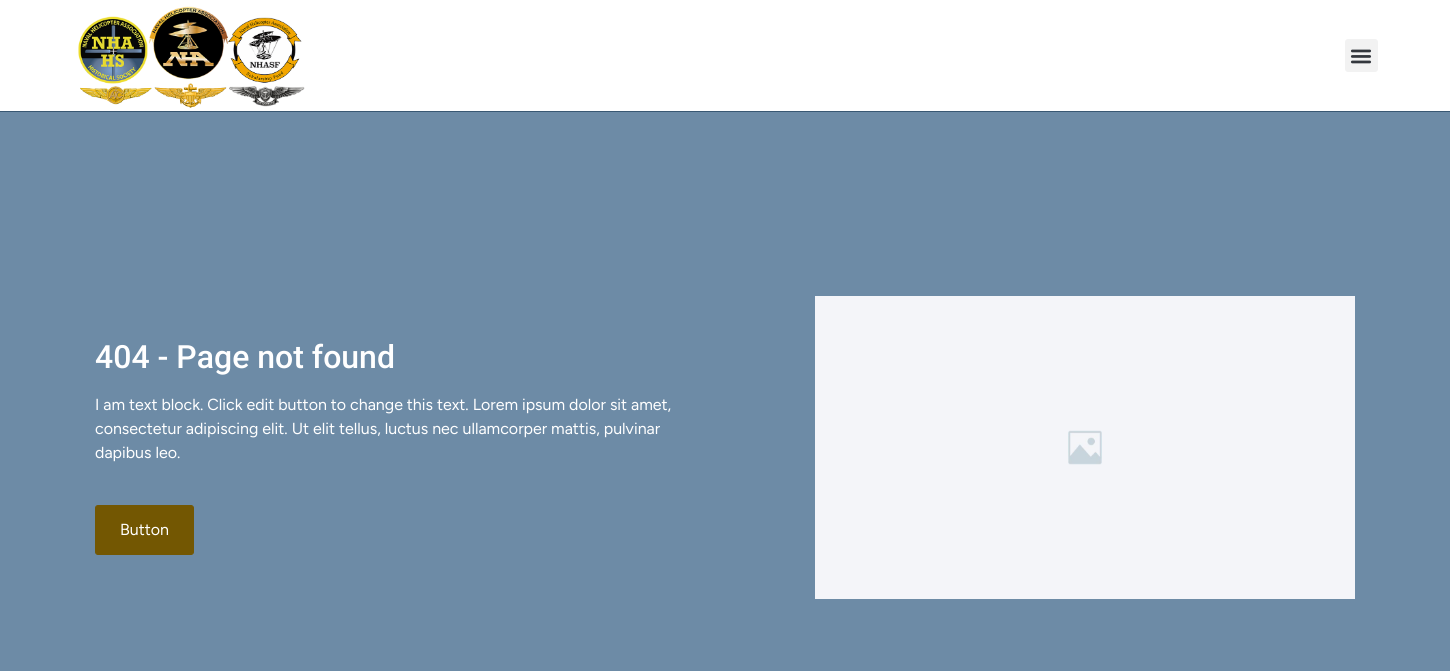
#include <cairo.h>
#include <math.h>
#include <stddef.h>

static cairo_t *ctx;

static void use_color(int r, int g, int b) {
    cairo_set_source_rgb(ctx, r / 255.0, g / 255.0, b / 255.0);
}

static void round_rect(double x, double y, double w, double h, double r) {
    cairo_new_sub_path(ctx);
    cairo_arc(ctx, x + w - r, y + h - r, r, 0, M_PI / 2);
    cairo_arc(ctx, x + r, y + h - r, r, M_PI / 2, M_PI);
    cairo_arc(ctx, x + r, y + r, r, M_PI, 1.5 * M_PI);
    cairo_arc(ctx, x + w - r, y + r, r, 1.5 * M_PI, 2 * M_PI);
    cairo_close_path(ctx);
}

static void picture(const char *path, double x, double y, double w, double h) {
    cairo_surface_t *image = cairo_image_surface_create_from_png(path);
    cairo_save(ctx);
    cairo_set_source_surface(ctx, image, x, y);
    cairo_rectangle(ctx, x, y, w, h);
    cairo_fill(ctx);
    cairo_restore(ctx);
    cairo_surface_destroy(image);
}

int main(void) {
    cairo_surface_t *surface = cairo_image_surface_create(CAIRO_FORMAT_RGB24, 1450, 671);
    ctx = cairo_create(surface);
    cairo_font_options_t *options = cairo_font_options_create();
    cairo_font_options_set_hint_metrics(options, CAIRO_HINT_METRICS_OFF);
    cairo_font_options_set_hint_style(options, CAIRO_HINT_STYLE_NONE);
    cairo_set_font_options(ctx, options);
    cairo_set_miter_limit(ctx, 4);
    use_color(255, 255, 255);
    cairo_paint(ctx);
    use_color(57, 88, 115);
    cairo_rectangle(ctx, 0, 111, 1450, 1);
    cairo_fill(ctx);
    picture("img1.png", 78, 6, 227, 102);
    use_color(242, 242, 242);
    round_rect(1345, 39, 33, 33, 3);
    cairo_fill(ctx);
    picture("img2.png", 1350, 49, 22, 15);
    use_color(109, 139, 166);
    cairo_rectangle(ctx, 0, 112, 1450, 559);
    cairo_fill(ctx);
    cairo_select_font_face(ctx, "Roboto Medium", CAIRO_FONT_SLANT_NORMAL, CAIRO_FONT_WEIGHT_NORMAL);
    cairo_set_font_size(ctx, 32);
    use_color(255, 255, 255);
    cairo_move_to(ctx, 95, 368);
    cairo_show_text(ctx, "404 - Page not found");
    cairo_select_font_face(ctx, "Figtree", CAIRO_FONT_SLANT_NORMAL, CAIRO_FONT_WEIGHT_NORMAL);
    cairo_set_font_size(ctx, 16);
    cairo_move_to(ctx, 95, 410);
    cairo_show_text(ctx, "I am text block. Click edit button to change this text. Lorem ipsum dolor sit amet,");
    cairo_move_to(ctx, 95, 434);
    cairo_show_text(ctx, "consectetur adipiscing elit. Ut elit tellus, luctus nec ullamcorper mattis, pulvinar");
    cairo_move_to(ctx, 95, 458);
    cairo_show_text(ctx, "dapibus leo.");
    use_color(115, 87, 2);
    round_rect(95.5, 505.5, 98, 49, 2.5);
    cairo_fill_preserve(ctx);
    cairo_set_line_width(ctx, 1);
    cairo_stroke(ctx);
    use_color(255, 255, 255);
    cairo_move_to(ctx, 120, 535);
    cairo_show_text(ctx, "Button");
    picture("img3.png", 815, 296, 540, 303);
    cairo_surface_write_to_png(surface, "result.png");
    cairo_font_options_destroy(options);
    cairo_destroy(ctx);
    cairo_surface_destroy(surface);
    return 0;
}
